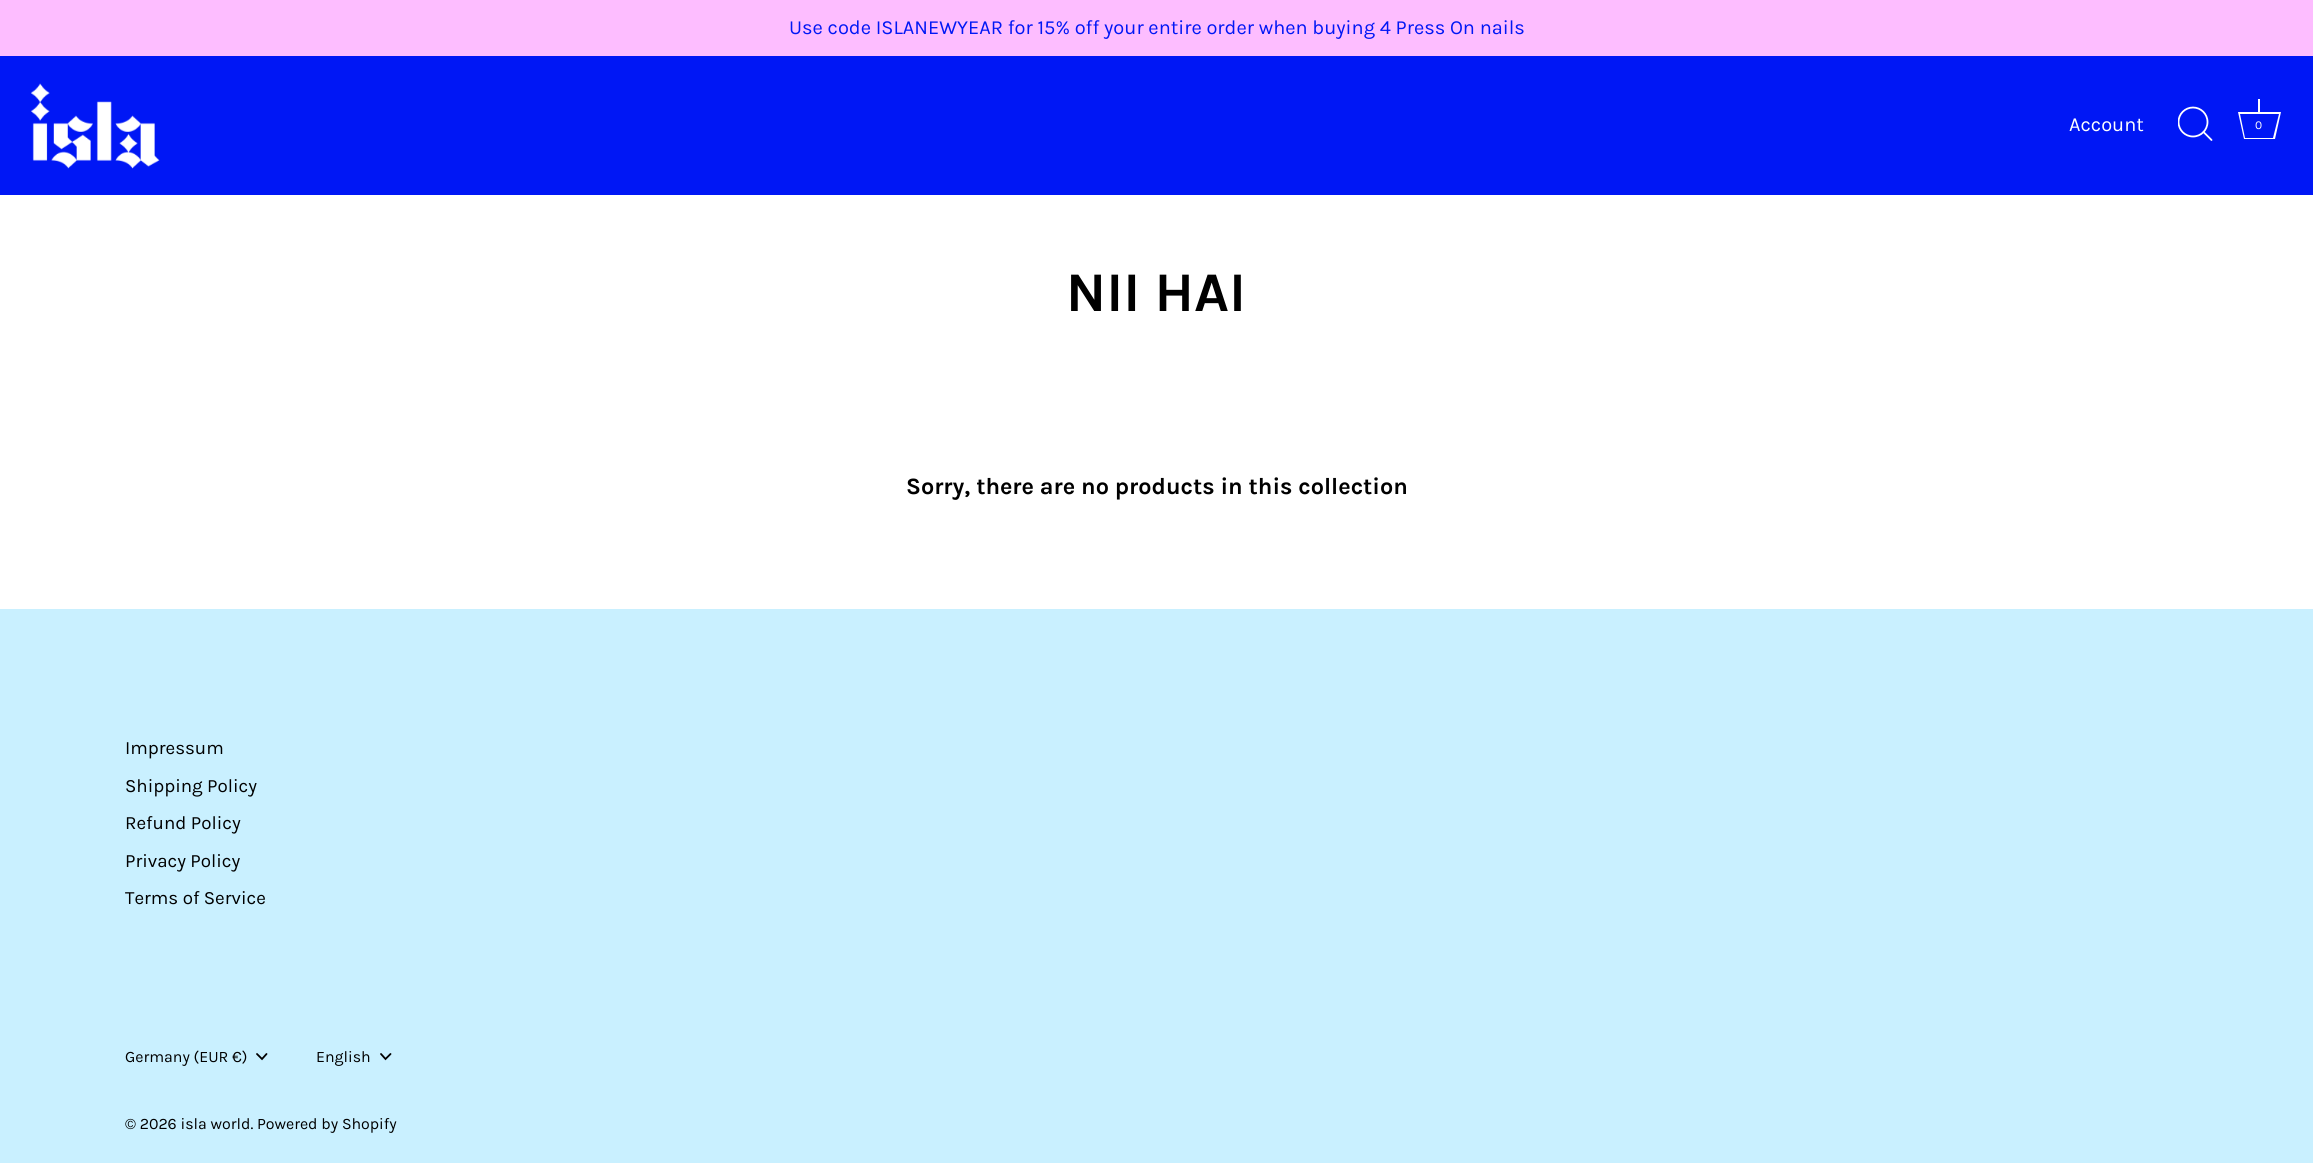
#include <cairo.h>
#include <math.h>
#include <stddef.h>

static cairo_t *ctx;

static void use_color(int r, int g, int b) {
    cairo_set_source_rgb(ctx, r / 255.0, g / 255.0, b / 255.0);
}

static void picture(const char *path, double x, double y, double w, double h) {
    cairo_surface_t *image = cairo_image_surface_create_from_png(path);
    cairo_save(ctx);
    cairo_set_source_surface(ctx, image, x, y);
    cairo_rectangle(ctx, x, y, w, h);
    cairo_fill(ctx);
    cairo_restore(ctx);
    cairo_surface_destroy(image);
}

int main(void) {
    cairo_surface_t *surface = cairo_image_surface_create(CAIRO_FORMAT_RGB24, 2313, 1163);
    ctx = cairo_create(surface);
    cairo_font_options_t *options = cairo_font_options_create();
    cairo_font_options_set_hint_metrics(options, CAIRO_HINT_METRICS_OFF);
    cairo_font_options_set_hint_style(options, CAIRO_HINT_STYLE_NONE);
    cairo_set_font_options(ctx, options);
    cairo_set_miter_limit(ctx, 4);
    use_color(255, 255, 255);
    cairo_paint(ctx);
    use_color(0, 23, 245);
    cairo_rectangle(ctx, 0, 56, 2313, 139);
    cairo_fill(ctx);
    use_color(253, 189, 255);
    cairo_rectangle(ctx, 0, 0, 2313, 56);
    cairo_fill(ctx);
    cairo_select_font_face(ctx, "Karla", CAIRO_FONT_SLANT_NORMAL, CAIRO_FONT_WEIGHT_NORMAL);
    cairo_set_font_size(ctx, 20);
    use_color(0, 23, 245);
    cairo_move_to(ctx, 789, 34);
    cairo_show_text(ctx, "Use code ISLANEWYEAR for 15% off your entire order when buying 4 Press On nails");
    picture("img1.png", 31, 83, 129, 86);
    use_color(255, 255, 255);
    cairo_move_to(ctx, 2069, 131);
    cairo_show_text(ctx, "Account");
    cairo_save(ctx);
    cairo_rectangle(ctx, 2178, 106, 36, 37);
    cairo_clip(ctx);
    cairo_arc(ctx, 2193, 122, 14.5, 0, 2 * M_PI);
    cairo_set_line_width(ctx, 1.8);
    cairo_stroke(ctx);
    cairo_restore(ctx);
    cairo_new_path(ctx);
    cairo_move_to(ctx, 2211.5, 140);
    cairo_line_to(ctx, 2203.5, 132);
    cairo_set_line_width(ctx, 1.8);
    cairo_set_line_cap(ctx, CAIRO_LINE_CAP_ROUND);
    cairo_set_line_join(ctx, CAIRO_LINE_JOIN_ROUND);
    cairo_stroke(ctx);
    cairo_rectangle(ctx, 2258, 99, 2, 13);
    cairo_fill(ctx);
    cairo_new_path(ctx);
    cairo_move_to(ctx, 2279, 114);
    cairo_line_to(ctx, 2273, 138);
    cairo_line_to(ctx, 2245, 138);
    cairo_line_to(ctx, 2240, 114);
    cairo_line_to(ctx, 2279, 114);
    cairo_move_to(ctx, 2281, 112);
    cairo_line_to(ctx, 2238, 112);
    cairo_line_to(ctx, 2244, 139);
    cairo_line_to(ctx, 2275, 139);
    cairo_close_path(ctx);
    cairo_fill(ctx);
    cairo_set_font_size(ctx, 12);
    cairo_move_to(ctx, 2255, 129);
    cairo_show_text(ctx, "0");
    cairo_select_font_face(ctx, "Karla", CAIRO_FONT_SLANT_NORMAL, CAIRO_FONT_WEIGHT_BOLD);
    cairo_set_font_size(ctx, 56);
    use_color(0, 0, 0);
    cairo_move_to(ctx, 1066, 311);
    cairo_show_text(ctx, "NII HAI");
    cairo_set_font_size(ctx, 23.4);
    cairo_move_to(ctx, 906, 494);
    cairo_show_text(ctx, "Sorry, there are no products in this collection");
    use_color(201, 240, 255);
    cairo_rectangle(ctx, 0, 609, 2313, 554);
    cairo_fill(ctx);
    cairo_select_font_face(ctx, "Karla", CAIRO_FONT_SLANT_NORMAL, CAIRO_FONT_WEIGHT_NORMAL);
    cairo_set_font_size(ctx, 18.75);
    use_color(0, 0, 0);
    cairo_move_to(ctx, 125, 754);
    cairo_show_text(ctx, "Impressum");
    cairo_move_to(ctx, 125, 792);
    cairo_show_text(ctx, "Shipping Policy");
    cairo_move_to(ctx, 125, 829);
    cairo_show_text(ctx, "Refund Policy");
    cairo_move_to(ctx, 125, 867);
    cairo_show_text(ctx, "Privacy Policy");
    cairo_move_to(ctx, 125, 904);
    cairo_show_text(ctx, "Terms of Service");
    cairo_set_font_size(ctx, 15.9);
    cairo_move_to(ctx, 125, 1062);
    cairo_show_text(ctx, "Germany (EUR €)");
    cairo_new_path(ctx);
    cairo_move_to(ctx, 257, 1054);
    cairo_line_to(ctx, 262, 1059);
    cairo_line_to(ctx, 266.5, 1054);
    cairo_set_line_join(ctx, CAIRO_LINE_JOIN_MITER);
    cairo_stroke(ctx);
    cairo_move_to(ctx, 316, 1062);
    cairo_show_text(ctx, "English");
    cairo_new_path(ctx);
    cairo_move_to(ctx, 381, 1054);
    cairo_line_to(ctx, 385.5, 1059);
    cairo_line_to(ctx, 390.5, 1054);
    cairo_stroke(ctx);
    cairo_move_to(ctx, 125, 1129);
    cairo_show_text(ctx, "© 2026 isla world. Powered by Shopify");
    cairo_surface_write_to_png(surface, "result.png");
    cairo_font_options_destroy(options);
    cairo_destroy(ctx);
    cairo_surface_destroy(surface);
    return 0;
}
